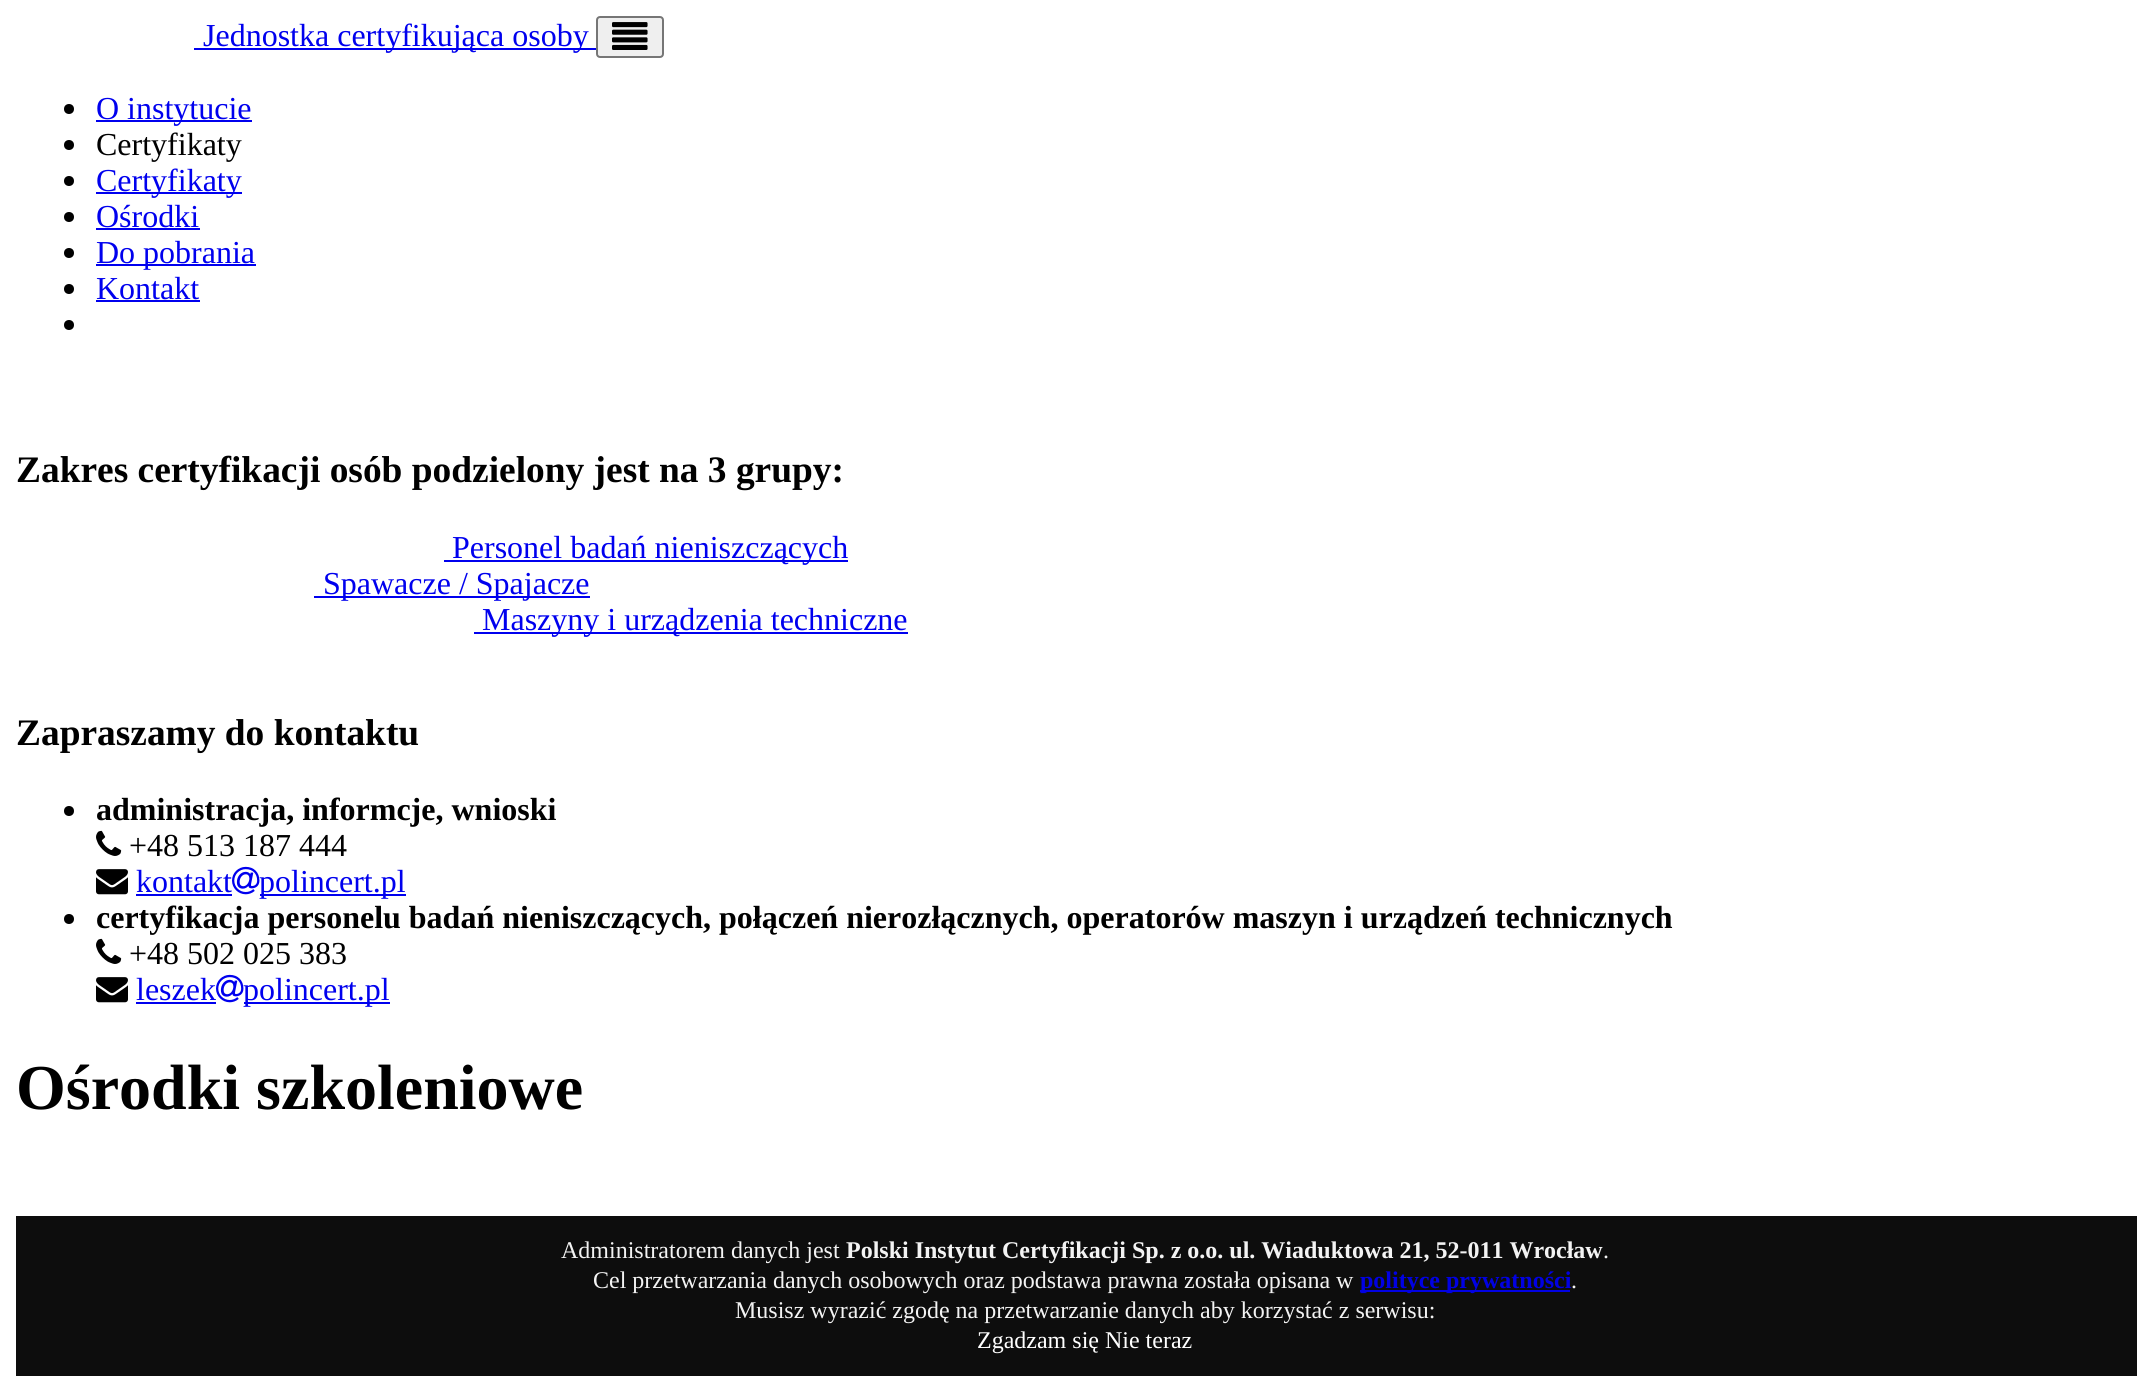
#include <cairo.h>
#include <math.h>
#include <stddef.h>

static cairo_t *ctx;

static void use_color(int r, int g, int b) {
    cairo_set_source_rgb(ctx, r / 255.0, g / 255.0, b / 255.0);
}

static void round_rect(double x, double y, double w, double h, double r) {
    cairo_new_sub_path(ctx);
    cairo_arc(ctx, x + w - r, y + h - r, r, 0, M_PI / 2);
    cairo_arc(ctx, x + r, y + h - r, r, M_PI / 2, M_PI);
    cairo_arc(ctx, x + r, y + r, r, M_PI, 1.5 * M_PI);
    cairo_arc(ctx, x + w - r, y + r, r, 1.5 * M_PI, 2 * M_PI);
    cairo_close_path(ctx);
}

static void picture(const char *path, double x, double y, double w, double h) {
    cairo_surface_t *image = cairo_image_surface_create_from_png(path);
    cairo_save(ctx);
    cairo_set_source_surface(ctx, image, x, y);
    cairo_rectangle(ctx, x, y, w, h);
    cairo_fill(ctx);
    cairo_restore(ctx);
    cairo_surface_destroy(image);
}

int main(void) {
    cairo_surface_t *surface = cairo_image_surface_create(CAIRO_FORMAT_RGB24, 2137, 1376);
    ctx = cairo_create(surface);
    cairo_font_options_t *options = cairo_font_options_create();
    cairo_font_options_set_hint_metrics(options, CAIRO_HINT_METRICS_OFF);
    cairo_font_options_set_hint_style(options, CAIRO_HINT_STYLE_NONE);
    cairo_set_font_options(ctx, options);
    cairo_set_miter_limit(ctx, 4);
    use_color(255, 255, 255);
    cairo_paint(ctx);
    use_color(13, 13, 13);
    cairo_rectangle(ctx, 16, 1216, 2121, 160);
    cairo_fill(ctx);
    use_color(0, 0, 238);
    cairo_rectangle(ctx, 194, 48, 394, 2);
    cairo_fill(ctx);
    cairo_select_font_face(ctx, "Liberation Serif", CAIRO_FONT_SLANT_NORMAL, CAIRO_FONT_WEIGHT_NORMAL);
    cairo_set_font_size(ctx, 32);
    cairo_move_to(ctx, 203, 46);
    cairo_show_text(ctx, "Jednostka certyfikująca osoby");
    cairo_rectangle(ctx, 588, 48, 8, 2);
    cairo_fill(ctx);
    use_color(239, 239, 239);
    round_rect(597, 17, 66, 40, 3);
    cairo_fill_preserve(ctx);
    use_color(118, 118, 118);
    cairo_stroke(ctx);
    picture("img1.png", 612, 22, 36, 28);
    use_color(0, 0, 0);
    cairo_arc(ctx, 69, 109, 5, 0, 2 * M_PI);
    cairo_fill(ctx);
    use_color(0, 0, 238);
    cairo_rectangle(ctx, 96, 120, 156, 2);
    cairo_fill(ctx);
    cairo_move_to(ctx, 96, 119);
    cairo_show_text(ctx, "O instytucie");
    use_color(0, 0, 0);
    cairo_new_path(ctx);
    cairo_arc(ctx, 69, 145, 5, 0, 2 * M_PI);
    cairo_fill(ctx);
    cairo_move_to(ctx, 96, 155);
    cairo_show_text(ctx, "Certyfikaty");
    cairo_new_path(ctx);
    cairo_arc(ctx, 69, 181, 5, 0, 2 * M_PI);
    cairo_fill(ctx);
    use_color(0, 0, 238);
    cairo_rectangle(ctx, 96, 192, 146, 2);
    cairo_fill(ctx);
    cairo_move_to(ctx, 96, 191);
    cairo_show_text(ctx, "Certyfikaty");
    use_color(0, 0, 0);
    cairo_new_path(ctx);
    cairo_arc(ctx, 69, 217, 5, 0, 2 * M_PI);
    cairo_fill(ctx);
    use_color(0, 0, 238);
    cairo_move_to(ctx, 96, 227);
    cairo_show_text(ctx, "Ośrodki");
    cairo_rectangle(ctx, 96, 228, 104, 2);
    cairo_fill(ctx);
    use_color(0, 0, 0);
    cairo_arc(ctx, 69, 253, 5, 0, 2 * M_PI);
    cairo_fill(ctx);
    use_color(0, 0, 238);
    cairo_rectangle(ctx, 96, 264, 160, 2);
    cairo_fill(ctx);
    cairo_move_to(ctx, 96, 263);
    cairo_show_text(ctx, "Do pobrania");
    use_color(0, 0, 0);
    cairo_new_path(ctx);
    cairo_arc(ctx, 69, 289, 5, 0, 2 * M_PI);
    cairo_fill(ctx);
    use_color(0, 0, 238);
    cairo_move_to(ctx, 96, 299);
    cairo_show_text(ctx, "Kontakt");
    cairo_rectangle(ctx, 96, 300, 104, 2);
    cairo_fill(ctx);
    use_color(0, 0, 0);
    cairo_arc(ctx, 69, 325, 5, 0, 2 * M_PI);
    cairo_fill(ctx);
    cairo_select_font_face(ctx, "Liberation Serif", CAIRO_FONT_SLANT_NORMAL, CAIRO_FONT_WEIGHT_BOLD);
    cairo_set_font_size(ctx, 37.4);
    cairo_move_to(ctx, 16, 482);
    cairo_show_text(ctx, "Zakres certyfikacji osób podzielony jest na 3 grupy:");
    use_color(0, 0, 238);
    cairo_rectangle(ctx, 444, 560, 404, 2);
    cairo_fill(ctx);
    cairo_select_font_face(ctx, "Liberation Serif", CAIRO_FONT_SLANT_NORMAL, CAIRO_FONT_WEIGHT_NORMAL);
    cairo_set_font_size(ctx, 32);
    cairo_move_to(ctx, 452, 558);
    cairo_show_text(ctx, "Personel badań nieniszczących");
    cairo_rectangle(ctx, 314, 596, 276, 2);
    cairo_fill(ctx);
    cairo_move_to(ctx, 323, 594);
    cairo_show_text(ctx, "Spawacze / Spajacze");
    cairo_rectangle(ctx, 474, 632, 434, 2);
    cairo_fill(ctx);
    cairo_move_to(ctx, 482, 630);
    cairo_show_text(ctx, "Maszyny i urządzenia techniczne");
    cairo_select_font_face(ctx, "Liberation Serif", CAIRO_FONT_SLANT_NORMAL, CAIRO_FONT_WEIGHT_BOLD);
    cairo_set_font_size(ctx, 37.4);
    use_color(0, 0, 0);
    cairo_move_to(ctx, 16, 745);
    cairo_show_text(ctx, "Zapraszamy do kontaktu");
    cairo_new_path(ctx);
    cairo_arc(ctx, 69, 811, 5, 0, 2 * M_PI);
    cairo_fill(ctx);
    cairo_set_font_size(ctx, 32);
    cairo_move_to(ctx, 96, 820);
    cairo_show_text(ctx, "administracja, informcje, wnioski");
    picture("img2.png", 96, 830, 26, 26);
    cairo_select_font_face(ctx, "Liberation Serif", CAIRO_FONT_SLANT_NORMAL, CAIRO_FONT_WEIGHT_NORMAL);
    cairo_move_to(ctx, 129, 856);
    cairo_show_text(ctx, "+48 513 187 444");
    picture("img3.png", 96, 869, 32, 26);
    use_color(0, 0, 238);
    cairo_move_to(ctx, 136, 892);
    cairo_show_text(ctx, "kontakt");
    cairo_rectangle(ctx, 136, 894, 96, 2);
    cairo_fill(ctx);
    picture("img4.png", 232, 866, 28, 29);
    cairo_rectangle(ctx, 260, 894, 146, 2);
    cairo_fill(ctx);
    cairo_move_to(ctx, 259, 892);
    cairo_show_text(ctx, "polincert.pl");
    use_color(0, 0, 0);
    cairo_new_path(ctx);
    cairo_arc(ctx, 69, 919, 5, 0, 2 * M_PI);
    cairo_fill(ctx);
    cairo_select_font_face(ctx, "Liberation Serif", CAIRO_FONT_SLANT_NORMAL, CAIRO_FONT_WEIGHT_BOLD);
    cairo_move_to(ctx, 96, 928);
    cairo_show_text(ctx, "certyfikacja personelu badań nieniszczących, połączeń nierozłącznych, operatorów maszyn i urządzeń technicznych");
    picture("img2.png", 96, 938, 26, 26);
    cairo_select_font_face(ctx, "Liberation Serif", CAIRO_FONT_SLANT_NORMAL, CAIRO_FONT_WEIGHT_NORMAL);
    cairo_move_to(ctx, 129, 964);
    cairo_show_text(ctx, "+48 502 025 383");
    picture("img3.png", 96, 977, 32, 26);
    use_color(0, 0, 238);
    cairo_move_to(ctx, 136, 1000);
    cairo_show_text(ctx, "leszek");
    cairo_rectangle(ctx, 136, 1002, 80, 2);
    cairo_fill(ctx);
    picture("img4.png", 216, 974, 28, 29);
    cairo_rectangle(ctx, 244, 1002, 146, 2);
    cairo_fill(ctx);
    cairo_move_to(ctx, 243, 1000);
    cairo_show_text(ctx, "polincert.pl");
    cairo_select_font_face(ctx, "Liberation Serif", CAIRO_FONT_SLANT_NORMAL, CAIRO_FONT_WEIGHT_BOLD);
    cairo_set_font_size(ctx, 64);
    use_color(0, 0, 0);
    cairo_move_to(ctx, 16, 1109);
    cairo_show_text(ctx, "Ośrodki szkoleniowe");
    cairo_select_font_face(ctx, "Liberation Serif", CAIRO_FONT_SLANT_NORMAL, CAIRO_FONT_WEIGHT_NORMAL);
    cairo_set_font_size(ctx, 24);
    use_color(243, 243, 243);
    cairo_move_to(ctx, 561, 1258);
    cairo_show_text(ctx, "Administratorem danych jest");
    cairo_select_font_face(ctx, "Liberation Serif", CAIRO_FONT_SLANT_NORMAL, CAIRO_FONT_WEIGHT_BOLD);
    cairo_move_to(ctx, 846, 1258);
    cairo_show_text(ctx, "Polski Instytut Certyfikacji Sp. z o.o. ul. Wiaduktowa 21, 52-011 Wrocław");
    cairo_select_font_face(ctx, "Liberation Serif", CAIRO_FONT_SLANT_NORMAL, CAIRO_FONT_WEIGHT_NORMAL);
    cairo_move_to(ctx, 1603, 1258);
    cairo_show_text(ctx, ".");
    cairo_move_to(ctx, 593, 1288);
    cairo_show_text(ctx, "Cel przetwarzania danych osobowych oraz podstawa prawna została opisana w");
    cairo_set_source_rgba(ctx, 0, 0, 0.933, 0.95);
    cairo_rectangle(ctx, 1360, 1290, 210, 2);
    cairo_fill(ctx);
    cairo_select_font_face(ctx, "Liberation Serif", CAIRO_FONT_SLANT_NORMAL, CAIRO_FONT_WEIGHT_BOLD);
    use_color(1, 1, 227);
    cairo_move_to(ctx, 1360, 1288);
    cairo_show_text(ctx, "polityce prywatności");
    cairo_select_font_face(ctx, "Liberation Serif", CAIRO_FONT_SLANT_NORMAL, CAIRO_FONT_WEIGHT_NORMAL);
    use_color(243, 243, 243);
    cairo_move_to(ctx, 1571, 1288);
    cairo_show_text(ctx, ".");
    cairo_move_to(ctx, 735, 1318);
    cairo_show_text(ctx, "Musisz wyrazić zgodę na przetwarzanie danych aby korzystać z serwisu:");
    use_color(255, 255, 255);
    cairo_move_to(ctx, 977, 1348);
    cairo_show_text(ctx, "Zgadzam się Nie teraz");
    cairo_surface_write_to_png(surface, "result.png");
    cairo_font_options_destroy(options);
    cairo_destroy(ctx);
    cairo_surface_destroy(surface);
    return 0;
}
